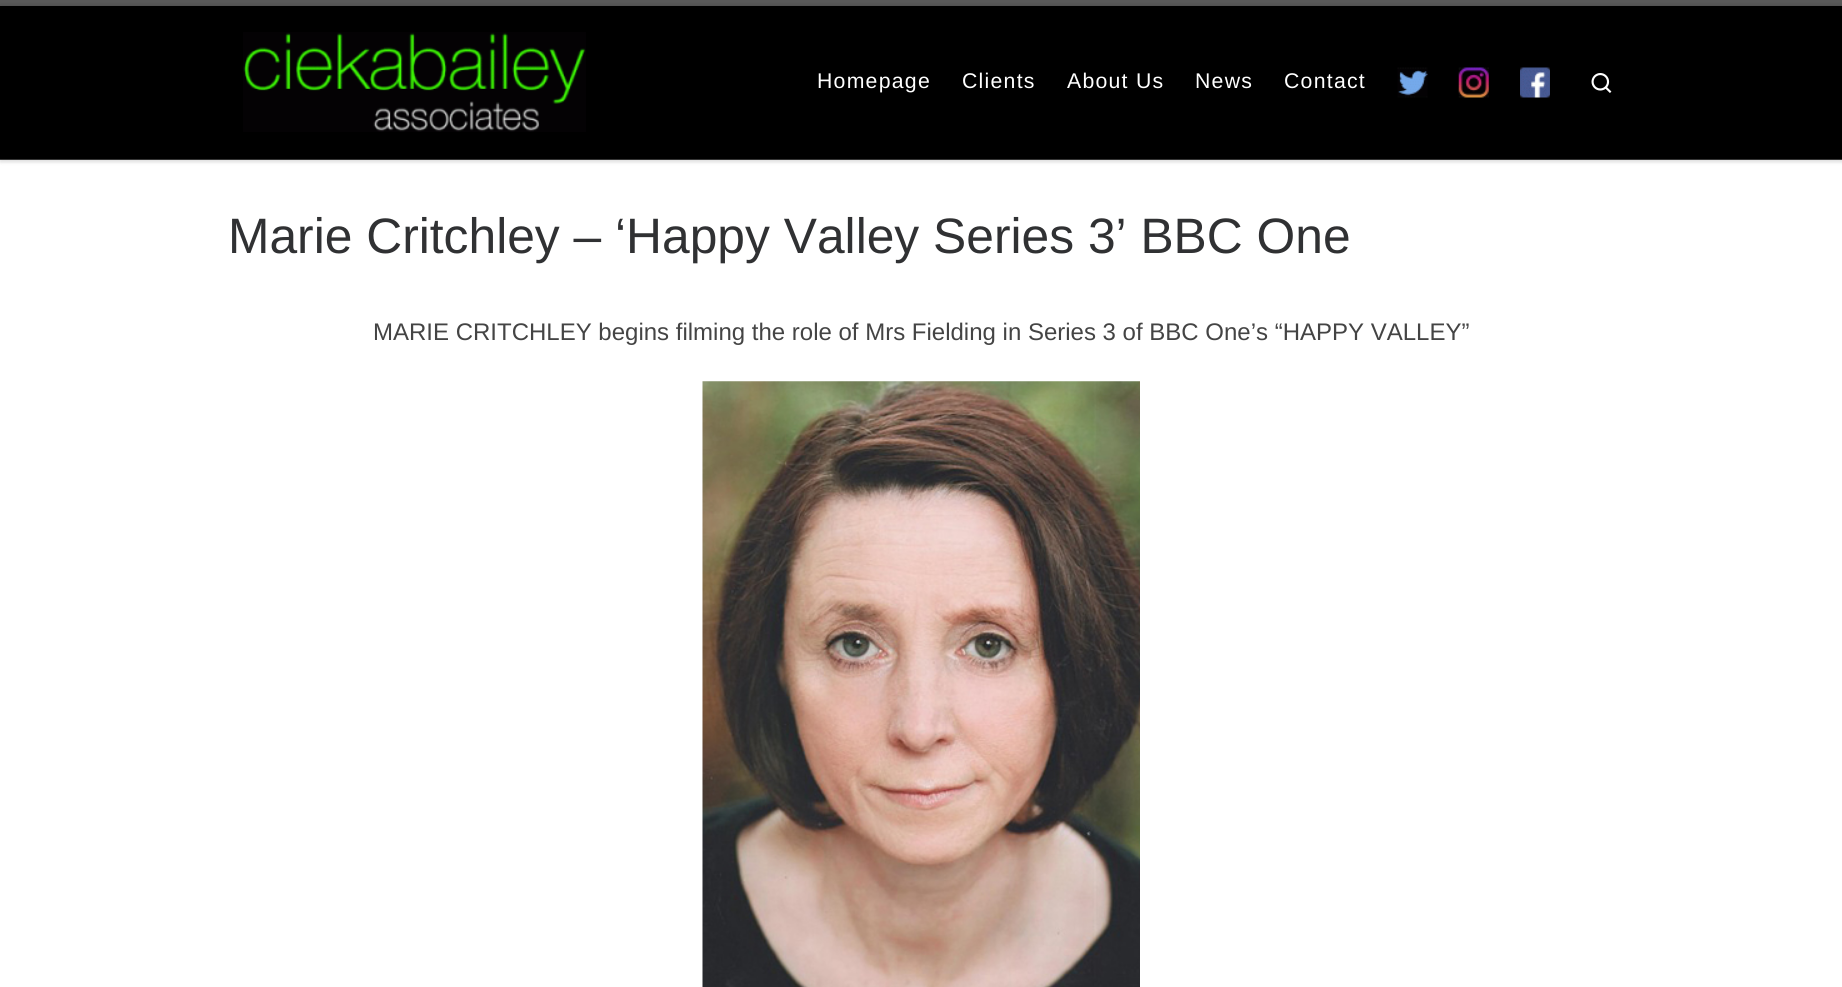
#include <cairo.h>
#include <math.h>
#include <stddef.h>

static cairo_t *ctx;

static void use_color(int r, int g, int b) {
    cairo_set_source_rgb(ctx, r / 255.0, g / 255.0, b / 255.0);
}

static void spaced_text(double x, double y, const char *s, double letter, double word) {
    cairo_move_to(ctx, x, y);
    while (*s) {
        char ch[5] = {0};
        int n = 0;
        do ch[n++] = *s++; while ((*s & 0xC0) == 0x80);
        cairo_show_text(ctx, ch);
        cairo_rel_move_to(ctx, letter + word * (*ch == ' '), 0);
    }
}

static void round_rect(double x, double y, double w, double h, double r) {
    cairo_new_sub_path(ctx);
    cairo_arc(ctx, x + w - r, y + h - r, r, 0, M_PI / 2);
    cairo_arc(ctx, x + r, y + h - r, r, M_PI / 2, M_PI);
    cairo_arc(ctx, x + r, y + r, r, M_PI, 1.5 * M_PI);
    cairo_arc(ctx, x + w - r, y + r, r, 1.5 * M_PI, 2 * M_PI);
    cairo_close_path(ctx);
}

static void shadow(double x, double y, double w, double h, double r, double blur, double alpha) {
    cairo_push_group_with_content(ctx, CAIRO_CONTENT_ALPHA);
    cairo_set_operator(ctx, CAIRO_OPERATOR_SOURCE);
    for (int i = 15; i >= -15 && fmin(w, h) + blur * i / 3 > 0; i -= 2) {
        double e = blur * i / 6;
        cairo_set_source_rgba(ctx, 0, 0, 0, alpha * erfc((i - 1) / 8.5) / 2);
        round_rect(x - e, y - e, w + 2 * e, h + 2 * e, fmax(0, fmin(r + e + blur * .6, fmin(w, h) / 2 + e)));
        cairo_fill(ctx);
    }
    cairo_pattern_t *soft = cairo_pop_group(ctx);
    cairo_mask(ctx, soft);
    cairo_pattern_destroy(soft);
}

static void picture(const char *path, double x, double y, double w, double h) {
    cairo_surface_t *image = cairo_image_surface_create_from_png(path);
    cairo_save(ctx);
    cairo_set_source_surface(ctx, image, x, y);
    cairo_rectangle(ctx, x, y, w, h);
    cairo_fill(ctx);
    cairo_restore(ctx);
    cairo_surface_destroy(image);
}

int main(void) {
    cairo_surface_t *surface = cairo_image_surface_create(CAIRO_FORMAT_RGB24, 1842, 987);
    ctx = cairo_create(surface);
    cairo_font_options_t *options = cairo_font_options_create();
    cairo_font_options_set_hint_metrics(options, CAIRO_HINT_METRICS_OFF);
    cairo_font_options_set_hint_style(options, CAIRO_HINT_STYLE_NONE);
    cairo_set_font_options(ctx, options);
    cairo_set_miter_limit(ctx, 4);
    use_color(255, 255, 255);
    cairo_paint(ctx);
    use_color(102, 102, 102);
    shadow(0, 3, 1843, 160, 0, 1, 0.08);
    use_color(0, 0, 0);
    cairo_rectangle(ctx, 0, 6, 1842, 153);
    cairo_fill(ctx);
    use_color(90, 90, 90);
    cairo_rectangle(ctx, 0, 0, 1842, 6);
    cairo_fill(ctx);
    use_color(58, 58, 58);
    cairo_new_path(ctx);
    cairo_move_to(ctx, 0, 159);
    cairo_line_to(ctx, 0, 160);
    cairo_line_to(ctx, 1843, 160);
    cairo_line_to(ctx, 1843, 8);
    cairo_line_to(ctx, 1842, 8);
    cairo_line_to(ctx, 1842, 159);
    cairo_close_path(ctx);
    cairo_fill(ctx);
    cairo_save(ctx);
    cairo_set_fill_rule(ctx, CAIRO_FILL_RULE_EVEN_ODD);
    cairo_new_path(ctx);
    cairo_move_to(ctx, 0, 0);
    cairo_line_to(ctx, 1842, 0);
    cairo_line_to(ctx, 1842, 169);
    cairo_line_to(ctx, 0, 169);
    cairo_close_path(ctx);
    cairo_move_to(ctx, 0, 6);
    cairo_line_to(ctx, 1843, 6);
    cairo_line_to(ctx, 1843, 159);
    cairo_line_to(ctx, 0, 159);
    cairo_close_path(ctx);
    cairo_clip(ctx);
    use_color(0, 0, 0);
    shadow(0, 6, 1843, 153, 0, 3, 0.2);
    cairo_restore(ctx);
    picture("img1.png", 243, 32, 343, 100);
    cairo_select_font_face(ctx, "Liberation Sans", CAIRO_FONT_SLANT_NORMAL, CAIRO_FONT_WEIGHT_NORMAL);
    cairo_set_font_size(ctx, 21.25);
    use_color(255, 255, 255);
    spaced_text(817, 88, "Homepage", 1.25, 0);
    spaced_text(962, 88, "Clients", 1.25, 0);
    spaced_text(1067, 88, "About Us", 1.25, 0);
    spaced_text(1195, 88, "News", 1.25, 0);
    spaced_text(1284, 88, "Contact", 1.25, 0);
    picture("img2.png", 1397, 67, 31, 31);
    picture("img3.png", 1458, 67, 31, 31);
    picture("img4.png", 1520, 67, 30, 31);
    picture("img5.png", 1591, 73, 21, 20);
    cairo_set_font_size(ctx, 49.75);
    use_color(48, 49, 51);
    cairo_move_to(ctx, 228, 253);
    cairo_show_text(ctx, "Marie Critchley – ‘Happy Valley Series 3’ BBC One");
    cairo_set_font_size(ctx, 24);
    use_color(68, 68, 68);
    cairo_move_to(ctx, 373, 340);
    cairo_show_text(ctx, "MARIE CRITCHLEY begins filming the role of Mrs Fielding in Series 3 of BBC One’s “HAPPY VALLEY”");
    picture("img6.png", 702, 381, 438, 606);
    cairo_surface_write_to_png(surface, "result.png");
    cairo_font_options_destroy(options);
    cairo_destroy(ctx);
    cairo_surface_destroy(surface);
    return 0;
}
